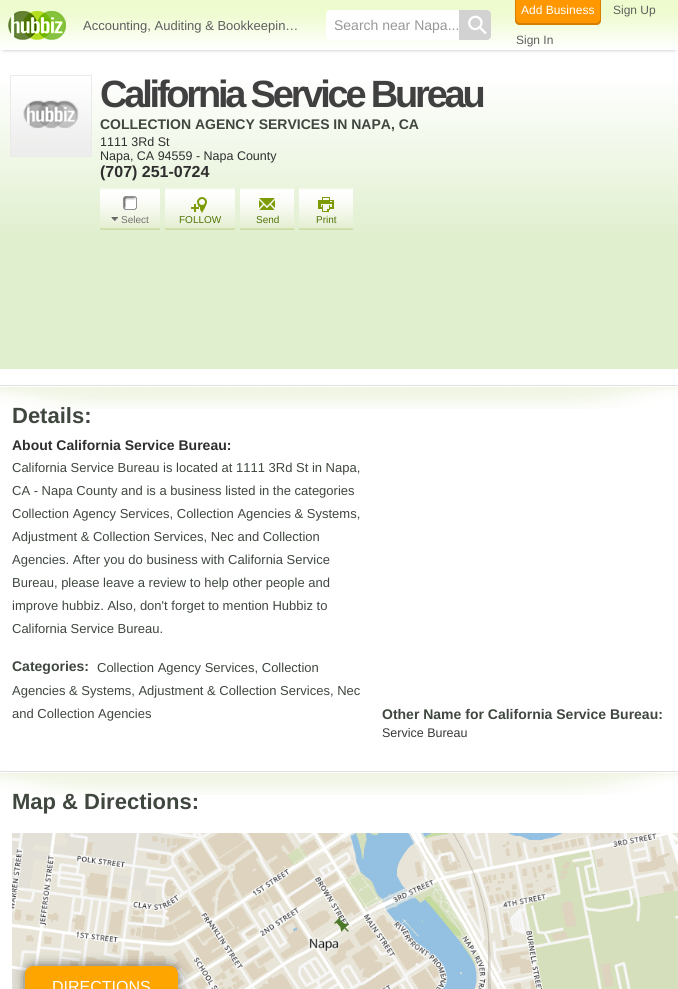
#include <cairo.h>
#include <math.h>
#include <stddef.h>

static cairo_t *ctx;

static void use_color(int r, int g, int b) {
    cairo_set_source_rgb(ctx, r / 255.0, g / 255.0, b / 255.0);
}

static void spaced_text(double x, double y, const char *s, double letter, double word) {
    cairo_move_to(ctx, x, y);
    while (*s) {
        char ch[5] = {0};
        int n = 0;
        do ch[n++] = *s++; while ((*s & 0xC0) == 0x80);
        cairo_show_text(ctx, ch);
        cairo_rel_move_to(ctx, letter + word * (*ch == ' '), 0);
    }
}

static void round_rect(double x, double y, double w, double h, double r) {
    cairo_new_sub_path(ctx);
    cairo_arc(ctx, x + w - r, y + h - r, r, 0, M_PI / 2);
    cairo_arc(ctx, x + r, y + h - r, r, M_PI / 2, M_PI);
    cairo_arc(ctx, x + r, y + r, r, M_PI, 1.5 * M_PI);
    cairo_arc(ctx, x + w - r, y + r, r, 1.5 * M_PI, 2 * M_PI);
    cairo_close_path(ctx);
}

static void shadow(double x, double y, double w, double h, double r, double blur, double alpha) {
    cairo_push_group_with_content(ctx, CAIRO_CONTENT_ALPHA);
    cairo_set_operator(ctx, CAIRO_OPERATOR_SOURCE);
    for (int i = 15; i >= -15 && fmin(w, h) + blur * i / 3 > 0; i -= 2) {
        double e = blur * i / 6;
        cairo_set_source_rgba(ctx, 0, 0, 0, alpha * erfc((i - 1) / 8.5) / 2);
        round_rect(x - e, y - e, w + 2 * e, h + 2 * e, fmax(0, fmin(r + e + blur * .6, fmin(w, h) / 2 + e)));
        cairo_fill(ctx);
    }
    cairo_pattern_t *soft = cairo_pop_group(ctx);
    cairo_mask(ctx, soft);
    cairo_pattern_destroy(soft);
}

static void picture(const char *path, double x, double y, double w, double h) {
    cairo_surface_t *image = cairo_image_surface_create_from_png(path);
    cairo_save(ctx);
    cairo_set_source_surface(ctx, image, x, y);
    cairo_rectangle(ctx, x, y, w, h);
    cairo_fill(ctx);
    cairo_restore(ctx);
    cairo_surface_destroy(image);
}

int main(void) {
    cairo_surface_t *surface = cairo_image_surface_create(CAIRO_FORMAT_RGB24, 678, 989);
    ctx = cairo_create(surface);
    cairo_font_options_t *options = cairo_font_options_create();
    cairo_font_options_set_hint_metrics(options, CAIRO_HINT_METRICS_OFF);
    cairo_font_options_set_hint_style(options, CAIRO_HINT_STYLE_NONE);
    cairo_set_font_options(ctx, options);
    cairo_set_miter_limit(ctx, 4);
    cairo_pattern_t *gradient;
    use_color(255, 255, 255);
    cairo_paint(ctx);
    use_color(63, 71, 63);
    shadow(4, 6, 670, 42, 0, 2.5, 1);
    gradient = cairo_pattern_create_linear(339, 0, 339, 50);
    cairo_pattern_add_color_stop_rgba(gradient, 0.25, 0.933, 0.984, 0.812, 1);
    cairo_pattern_add_color_stop_rgba(gradient, 1, 1, 1, 1, 1);
    cairo_set_source(ctx, gradient);
    cairo_pattern_destroy(gradient);
    cairo_rectangle(ctx, 0, 0, 678, 50);
    cairo_fill(ctx);
    picture("img1.png", 8, 11, 58, 29);
    cairo_select_font_face(ctx, "Liberation Sans", CAIRO_FONT_SLANT_NORMAL, CAIRO_FONT_WEIGHT_NORMAL);
    cairo_set_font_size(ctx, 13);
    use_color(95, 95, 95);
    cairo_move_to(ctx, 83, 30);
    cairo_show_text(ctx, "Accounting, Auditing & Bookkeepin…");
    use_color(255, 255, 255);
    round_rect(326, 10, 165, 30, 4);
    cairo_fill(ctx);
    cairo_set_font_size(ctx, 14);
    use_color(152, 152, 152);
    cairo_move_to(ctx, 334, 30);
    cairo_show_text(ctx, "Search near Napa...");
    use_color(210, 210, 210);
    cairo_new_path(ctx);
    cairo_move_to(ctx, 459, 10);
    cairo_line_to(ctx, 487, 10);
    cairo_curve_to(ctx, 489, 10, 491, 12, 491, 14);
    cairo_line_to(ctx, 491, 36);
    cairo_curve_to(ctx, 491, 38, 489, 40, 487, 40);
    cairo_line_to(ctx, 459, 40);
    cairo_close_path(ctx);
    cairo_fill(ctx);
    cairo_select_font_face(ctx, "DejaVu Sans", CAIRO_FONT_SLANT_NORMAL, CAIRO_FONT_WEIGHT_NORMAL);
    cairo_set_font_size(ctx, 26);
    use_color(255, 255, 255);
    cairo_save(ctx);
    cairo_translate(ctx, 477, 38);
    cairo_rotate(ctx, -45 * M_PI / 180);
    cairo_move_to(ctx, 0, 0);
    cairo_show_text(ctx, "⚲");
    cairo_restore(ctx);
    use_color(255, 152, 0);
    round_rect(515, -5, 86, 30, 5);
    cairo_fill(ctx);
    use_color(214, 128, 1);
    cairo_new_path(ctx);
    cairo_move_to(ctx, 520, -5);
    cairo_curve_to(ctx, 517, -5, 515, -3, 515, 0);
    cairo_line_to(ctx, 515, 20);
    cairo_curve_to(ctx, 515, 23, 517, 25, 520, 25);
    cairo_line_to(ctx, 596, 25);
    cairo_curve_to(ctx, 599, 25, 601, 23, 601, 20);
    cairo_line_to(ctx, 601, 0);
    cairo_curve_to(ctx, 601, -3, 599, -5, 596, -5);
    cairo_curve_to(ctx, 598, -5, 600, -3, 600, -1);
    cairo_line_to(ctx, 600, 19);
    cairo_curve_to(ctx, 600, 21, 598, 23, 596, 23);
    cairo_line_to(ctx, 520, 23);
    cairo_curve_to(ctx, 518, 23, 516, 21, 516, 19);
    cairo_line_to(ctx, 516, -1);
    cairo_curve_to(ctx, 516, -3, 518, -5, 520, -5);
    cairo_close_path(ctx);
    cairo_fill(ctx);
    cairo_select_font_face(ctx, "Liberation Sans", CAIRO_FONT_SLANT_NORMAL, CAIRO_FONT_WEIGHT_NORMAL);
    cairo_set_font_size(ctx, 12);
    use_color(255, 255, 255);
    cairo_move_to(ctx, 521, 14);
    cairo_show_text(ctx, "Add Business");
    use_color(95, 95, 95);
    cairo_move_to(ctx, 613, 14);
    cairo_show_text(ctx, "Sign Up");
    cairo_move_to(ctx, 516, 44);
    cairo_show_text(ctx, "Sign In");
    gradient = cairo_pattern_create_linear(341, 240, 341, 75);
    cairo_pattern_add_color_stop_rgba(gradient, 0, 0.878, 0.937, 0.808, 1);
    cairo_pattern_add_color_stop_rgba(gradient, 1, 1, 1, 1, 1);
    cairo_set_source(ctx, gradient);
    cairo_pattern_destroy(gradient);
    cairo_rectangle(ctx, 0, 83, 678, 157);
    cairo_fill(ctx);
    picture("img2.png", 10, 75, 82, 82);
    cairo_select_font_face(ctx, "Liberation Sans", CAIRO_FONT_SLANT_NORMAL, CAIRO_FONT_WEIGHT_BOLD);
    cairo_set_font_size(ctx, 38);
    use_color(64, 64, 64);
    spaced_text(100, 107, "California Service Bureau", -3.2, 0);
    cairo_set_font_size(ctx, 14);
    use_color(63, 71, 63);
    cairo_move_to(ctx, 100, 129);
    cairo_show_text(ctx, "COLLECTION AGENCY SERVICES IN NAPA, CA");
    cairo_select_font_face(ctx, "Liberation Sans", CAIRO_FONT_SLANT_NORMAL, CAIRO_FONT_WEIGHT_NORMAL);
    cairo_set_font_size(ctx, 12.5);
    use_color(46, 46, 46);
    cairo_move_to(ctx, 100, 146);
    cairo_show_text(ctx, "1111 3Rd St");
    cairo_move_to(ctx, 100, 160);
    cairo_show_text(ctx, "Napa, CA 94559 - Napa County");
    cairo_select_font_face(ctx, "Liberation Sans", CAIRO_FONT_SLANT_NORMAL, CAIRO_FONT_WEIGHT_BOLD);
    cairo_set_font_size(ctx, 16);
    cairo_move_to(ctx, 100, 177);
    cairo_show_text(ctx, "(707) 251-0724");
    picture("img3.png", 100, 188, 60, 42);
    picture("img4.png", 123, 196, 14, 14);
    picture("img5.png", 111, 217, 7, 4);
    cairo_select_font_face(ctx, "Liberation Sans", CAIRO_FONT_SLANT_NORMAL, CAIRO_FONT_WEIGHT_NORMAL);
    cairo_set_font_size(ctx, 10);
    use_color(115, 113, 114);
    cairo_move_to(ctx, 121, 223);
    cairo_show_text(ctx, "Select");
    picture("img6.png", 165, 188, 70, 42);
    picture("img7.png", 191, 197, 16, 16);
    use_color(80, 116, 4);
    cairo_move_to(ctx, 179, 223);
    cairo_show_text(ctx, "FOLLOW");
    picture("img8.png", 240, 188, 54, 42);
    picture("img9.png", 259, 198, 16, 12);
    cairo_move_to(ctx, 256, 223);
    cairo_show_text(ctx, "Send");
    picture("img8.png", 299, 188, 54, 42);
    picture("img10.png", 318, 197, 16, 15);
    cairo_move_to(ctx, 316, 223);
    cairo_show_text(ctx, "Print");
    use_color(224, 239, 206);
    cairo_rectangle(ctx, 0, 240, 678, 129);
    cairo_fill(ctx);
    picture("img11.png", 0, 385, 678, 24);
    cairo_select_font_face(ctx, "Liberation Sans", CAIRO_FONT_SLANT_NORMAL, CAIRO_FONT_WEIGHT_BOLD);
    cairo_set_font_size(ctx, 22);
    use_color(63, 71, 63);
    cairo_move_to(ctx, 12, 423);
    cairo_show_text(ctx, "Details:");
    cairo_set_font_size(ctx, 14);
    use_color(46, 46, 46);
    cairo_move_to(ctx, 12, 450);
    cairo_show_text(ctx, "About California Service Bureau:");
    cairo_select_font_face(ctx, "Liberation Sans", CAIRO_FONT_SLANT_NORMAL, CAIRO_FONT_WEIGHT_NORMAL);
    cairo_set_font_size(ctx, 13);
    use_color(63, 71, 63);
    cairo_move_to(ctx, 12, 472);
    cairo_show_text(ctx, "California Service Bureau is located at 1111 3Rd St in Napa,");
    cairo_move_to(ctx, 12, 495);
    cairo_show_text(ctx, "CA - Napa County and is a business listed in the categories");
    cairo_move_to(ctx, 12, 518);
    cairo_show_text(ctx, "Collection Agency Services, Collection Agencies & Systems,");
    cairo_move_to(ctx, 12, 541);
    cairo_show_text(ctx, "Adjustment & Collection Services, Nec and Collection");
    cairo_move_to(ctx, 12, 564);
    cairo_show_text(ctx, "Agencies. After you do business with California Service");
    cairo_move_to(ctx, 12, 587);
    cairo_show_text(ctx, "Bureau, please leave a review to help other people and");
    cairo_move_to(ctx, 12, 610);
    cairo_show_text(ctx, "improve hubbiz. Also, don't forget to mention Hubbiz to");
    cairo_move_to(ctx, 12, 633);
    cairo_show_text(ctx, "California Service Bureau.");
    cairo_select_font_face(ctx, "Liberation Sans", CAIRO_FONT_SLANT_NORMAL, CAIRO_FONT_WEIGHT_BOLD);
    cairo_set_font_size(ctx, 14);
    cairo_move_to(ctx, 12, 671);
    cairo_show_text(ctx, "Categories:");
    cairo_select_font_face(ctx, "Liberation Sans", CAIRO_FONT_SLANT_NORMAL, CAIRO_FONT_WEIGHT_NORMAL);
    cairo_set_font_size(ctx, 13);
    cairo_move_to(ctx, 97, 672);
    cairo_show_text(ctx, "Collection Agency Services, Collection");
    cairo_move_to(ctx, 12, 695);
    cairo_show_text(ctx, "Agencies & Systems, Adjustment & Collection Services, Nec");
    cairo_move_to(ctx, 12, 718);
    cairo_show_text(ctx, "and Collection Agencies");
    cairo_select_font_face(ctx, "Liberation Sans", CAIRO_FONT_SLANT_NORMAL, CAIRO_FONT_WEIGHT_BOLD);
    cairo_set_font_size(ctx, 14);
    cairo_move_to(ctx, 382, 719);
    cairo_show_text(ctx, "Other Name for California Service Bureau:");
    cairo_select_font_face(ctx, "Liberation Sans", CAIRO_FONT_SLANT_NORMAL, CAIRO_FONT_WEIGHT_NORMAL);
    cairo_set_font_size(ctx, 12.5);
    use_color(54, 55, 55);
    cairo_move_to(ctx, 382, 737);
    cairo_show_text(ctx, "Service Bureau");
    picture("img11.png", 0, 771, 678, 24);
    cairo_select_font_face(ctx, "Liberation Sans", CAIRO_FONT_SLANT_NORMAL, CAIRO_FONT_WEIGHT_BOLD);
    cairo_set_font_size(ctx, 22);
    use_color(63, 71, 63);
    cairo_move_to(ctx, 12, 809);
    cairo_show_text(ctx, "Map & Directions:");
    picture("img12.png", 12, 833, 666, 156);
    picture("img13.png", 334, 917, 15, 15);
    use_color(0, 0, 0);
    shadow(29, 970, 145, 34, 4, 7.5, 1);
    use_color(255, 165, 0);
    round_rect(25, 966, 153, 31, 8);
    cairo_fill(ctx);
    cairo_select_font_face(ctx, "Liberation Sans", CAIRO_FONT_SLANT_NORMAL, CAIRO_FONT_WEIGHT_NORMAL);
    cairo_set_font_size(ctx, 16);
    use_color(255, 255, 255);
    cairo_move_to(ctx, 52, 992);
    cairo_show_text(ctx, "DIRECTIONS");
    cairo_surface_write_to_png(surface, "result.png");
    cairo_font_options_destroy(options);
    cairo_destroy(ctx);
    cairo_surface_destroy(surface);
    return 0;
}
